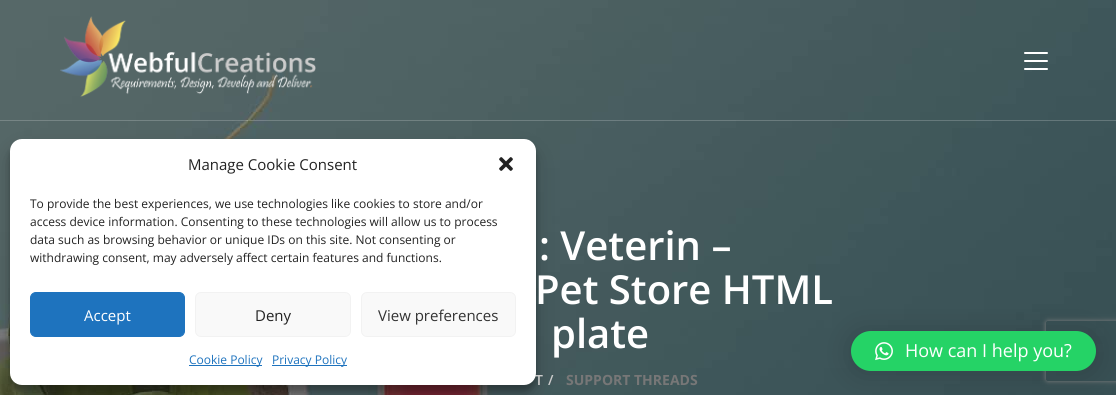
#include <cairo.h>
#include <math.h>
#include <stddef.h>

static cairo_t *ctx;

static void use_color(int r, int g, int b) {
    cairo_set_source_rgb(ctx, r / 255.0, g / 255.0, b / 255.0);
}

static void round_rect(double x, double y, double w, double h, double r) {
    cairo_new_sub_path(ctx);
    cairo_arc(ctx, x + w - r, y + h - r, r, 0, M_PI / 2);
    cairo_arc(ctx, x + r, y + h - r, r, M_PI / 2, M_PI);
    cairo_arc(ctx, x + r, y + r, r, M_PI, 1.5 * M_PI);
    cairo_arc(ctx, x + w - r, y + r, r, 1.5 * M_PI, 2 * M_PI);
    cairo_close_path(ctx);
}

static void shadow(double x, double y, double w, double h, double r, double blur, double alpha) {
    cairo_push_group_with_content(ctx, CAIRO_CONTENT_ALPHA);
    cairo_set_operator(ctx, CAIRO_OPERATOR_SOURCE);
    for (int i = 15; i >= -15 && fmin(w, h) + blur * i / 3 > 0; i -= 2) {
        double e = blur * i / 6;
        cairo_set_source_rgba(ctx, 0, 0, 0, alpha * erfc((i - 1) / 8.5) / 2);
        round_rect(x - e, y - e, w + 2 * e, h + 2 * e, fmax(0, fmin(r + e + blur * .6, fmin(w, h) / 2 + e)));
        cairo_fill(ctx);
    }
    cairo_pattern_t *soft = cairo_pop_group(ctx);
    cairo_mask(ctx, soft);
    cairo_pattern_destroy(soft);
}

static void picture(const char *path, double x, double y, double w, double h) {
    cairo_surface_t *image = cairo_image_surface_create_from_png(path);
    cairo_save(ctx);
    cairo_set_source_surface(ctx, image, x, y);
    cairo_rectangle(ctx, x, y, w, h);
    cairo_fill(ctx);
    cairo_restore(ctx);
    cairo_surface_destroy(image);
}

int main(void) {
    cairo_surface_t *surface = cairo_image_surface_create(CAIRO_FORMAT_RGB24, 1116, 395);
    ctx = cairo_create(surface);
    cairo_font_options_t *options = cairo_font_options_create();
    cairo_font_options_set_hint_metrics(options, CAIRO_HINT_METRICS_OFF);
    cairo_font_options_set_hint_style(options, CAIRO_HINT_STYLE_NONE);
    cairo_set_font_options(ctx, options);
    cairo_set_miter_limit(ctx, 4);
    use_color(255, 255, 255);
    cairo_paint(ctx);
    picture("img3.png", 0, 0, 1116, 395);
    use_color(0, 0, 0);
    shadow(10, 145, 526, 246, 12, 3, 0.23);
    cairo_set_source_rgba(ctx, 1, 1, 1, 0.2);
    cairo_rectangle(ctx, 0, 120, 1116, 1);
    cairo_fill(ctx);
    use_color(0, 0, 0);
    shadow(10, 149, 526, 246, 12, 10, 0.19);
    cairo_select_font_face(ctx, "Open Sans SemiBold", CAIRO_FONT_SLANT_NORMAL, CAIRO_FONT_WEIGHT_NORMAL);
    cairo_set_font_size(ctx, 14);
    use_color(204, 204, 204);
    cairo_move_to(ctx, 535, 385);
    cairo_show_text(ctx, "T");
    use_color(255, 255, 255);
    round_rect(10, 139, 526, 246, 12);
    cairo_fill(ctx);
    cairo_select_font_face(ctx, "Open Sans", CAIRO_FONT_SLANT_NORMAL, CAIRO_FONT_WEIGHT_NORMAL);
    cairo_set_font_size(ctx, 15);
    use_color(34, 34, 34);
    cairo_move_to(ctx, 188, 170);
    cairo_show_text(ctx, "Manage Cookie Consent");
    picture("img1.png", 499, 157, 14, 14);
    cairo_set_font_size(ctx, 12);
    cairo_move_to(ctx, 30, 208);
    cairo_show_text(ctx, "To provide the best experiences, we use technologies like cookies to store and/or");
    cairo_move_to(ctx, 30, 226);
    cairo_show_text(ctx, "access device information. Consenting to these technologies will allow us to process");
    cairo_move_to(ctx, 30, 244);
    cairo_show_text(ctx, "data such as browsing behavior or unique IDs on this site. Not consenting or");
    cairo_move_to(ctx, 30, 262);
    cairo_show_text(ctx, "withdrawing consent, may adversely affect certain features and functions.");
    use_color(30, 115, 190);
    round_rect(30.5, 292.5, 154, 44, 5.5);
    cairo_fill_preserve(ctx);
    cairo_set_line_width(ctx, 1);
    cairo_stroke(ctx);
    cairo_set_font_size(ctx, 15);
    use_color(255, 255, 255);
    cairo_move_to(ctx, 84, 321);
    cairo_show_text(ctx, "Accept");
    use_color(249, 249, 249);
    round_rect(195.5, 292.5, 155, 44, 5.5);
    cairo_fill_preserve(ctx);
    use_color(242, 242, 242);
    cairo_stroke(ctx);
    use_color(34, 34, 34);
    cairo_move_to(ctx, 255, 321);
    cairo_show_text(ctx, "Deny");
    use_color(249, 249, 249);
    round_rect(361.5, 292.5, 154, 44, 5.5);
    cairo_fill_preserve(ctx);
    use_color(242, 242, 242);
    cairo_stroke(ctx);
    use_color(51, 51, 51);
    cairo_move_to(ctx, 378, 321);
    cairo_show_text(ctx, "View preferences");
    use_color(30, 115, 190);
    cairo_rectangle(ctx, 189, 365, 73, 1);
    cairo_fill(ctx);
    cairo_set_font_size(ctx, 12);
    cairo_move_to(ctx, 189, 364);
    cairo_show_text(ctx, "Cookie Policy");
    cairo_rectangle(ctx, 272, 365, 75, 1);
    cairo_fill(ctx);
    cairo_move_to(ctx, 272, 364);
    cairo_show_text(ctx, "Privacy Policy");
    picture("img2.png", 60, 16, 256, 81);
    use_color(255, 255, 255);
    round_rect(1024, 68, 24, 2, 1);
    cairo_fill(ctx);
    round_rect(1024, 52, 24, 2, 1);
    cairo_fill(ctx);
    round_rect(1024, 60, 24, 2, 1);
    cairo_fill(ctx);
    cairo_select_font_face(ctx, "Open Sans SemiBold", CAIRO_FONT_SLANT_NORMAL, CAIRO_FONT_WEIGHT_NORMAL);
    cairo_set_font_size(ctx, 40);
    cairo_move_to(ctx, 539, 260);
    cairo_show_text(ctx, ": Veterin –");
    cairo_move_to(ctx, 535, 304);
    cairo_show_text(ctx, "Pet Store HTML");
    cairo_move_to(ctx, 551, 348);
    cairo_show_text(ctx, "plate");
    cairo_set_font_size(ctx, 14);
    use_color(204, 204, 204);
    cairo_move_to(ctx, 548, 385);
    cairo_show_text(ctx, "/");
    cairo_select_font_face(ctx, "Open Sans", CAIRO_FONT_SLANT_NORMAL, CAIRO_FONT_WEIGHT_BOLD);
    use_color(119, 119, 119);
    cairo_move_to(ctx, 566, 385);
    cairo_show_text(ctx, "SUPPORT THREADS");
    use_color(0, 0, 0);
    shadow(851, 333, 245, 40, 20, 16, 0.16);
    cairo_save(ctx);
    cairo_set_fill_rule(ctx, CAIRO_FILL_RULE_EVEN_ODD);
    cairo_new_path(ctx);
    cairo_move_to(ctx, 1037, 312);
    cairo_line_to(ctx, 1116, 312);
    cairo_line_to(ctx, 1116, 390);
    cairo_line_to(ctx, 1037, 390);
    cairo_close_path(ctx);
    cairo_move_to(ctx, 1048, 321);
    cairo_line_to(ctx, 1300, 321);
    cairo_curve_to(ctx, 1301, 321, 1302, 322, 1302, 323);
    cairo_line_to(ctx, 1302, 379);
    cairo_curve_to(ctx, 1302, 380, 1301, 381, 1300, 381);
    cairo_line_to(ctx, 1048, 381);
    cairo_curve_to(ctx, 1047, 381, 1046, 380, 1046, 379);
    cairo_line_to(ctx, 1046, 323);
    cairo_curve_to(ctx, 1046, 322, 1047, 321, 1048, 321);
    cairo_close_path(ctx);
    cairo_clip(ctx);
    use_color(128, 128, 128);
    shadow(1046, 321, 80, 60, 2, 2.5, 1);
    cairo_restore(ctx);
    use_color(37, 211, 102);
    round_rect(851, 331, 245, 40, 20);
    cairo_fill(ctx);
    picture("img4.png", 875, 342, 18, 19);
    cairo_select_font_face(ctx, "Open Sans", CAIRO_FONT_SLANT_NORMAL, CAIRO_FONT_WEIGHT_NORMAL);
    cairo_set_font_size(ctx, 18);
    use_color(255, 255, 255);
    cairo_move_to(ctx, 905, 357);
    cairo_show_text(ctx, "How can I help you?");
    cairo_surface_write_to_png(surface, "result.png");
    cairo_font_options_destroy(options);
    cairo_destroy(ctx);
    cairo_surface_destroy(surface);
    return 0;
}
